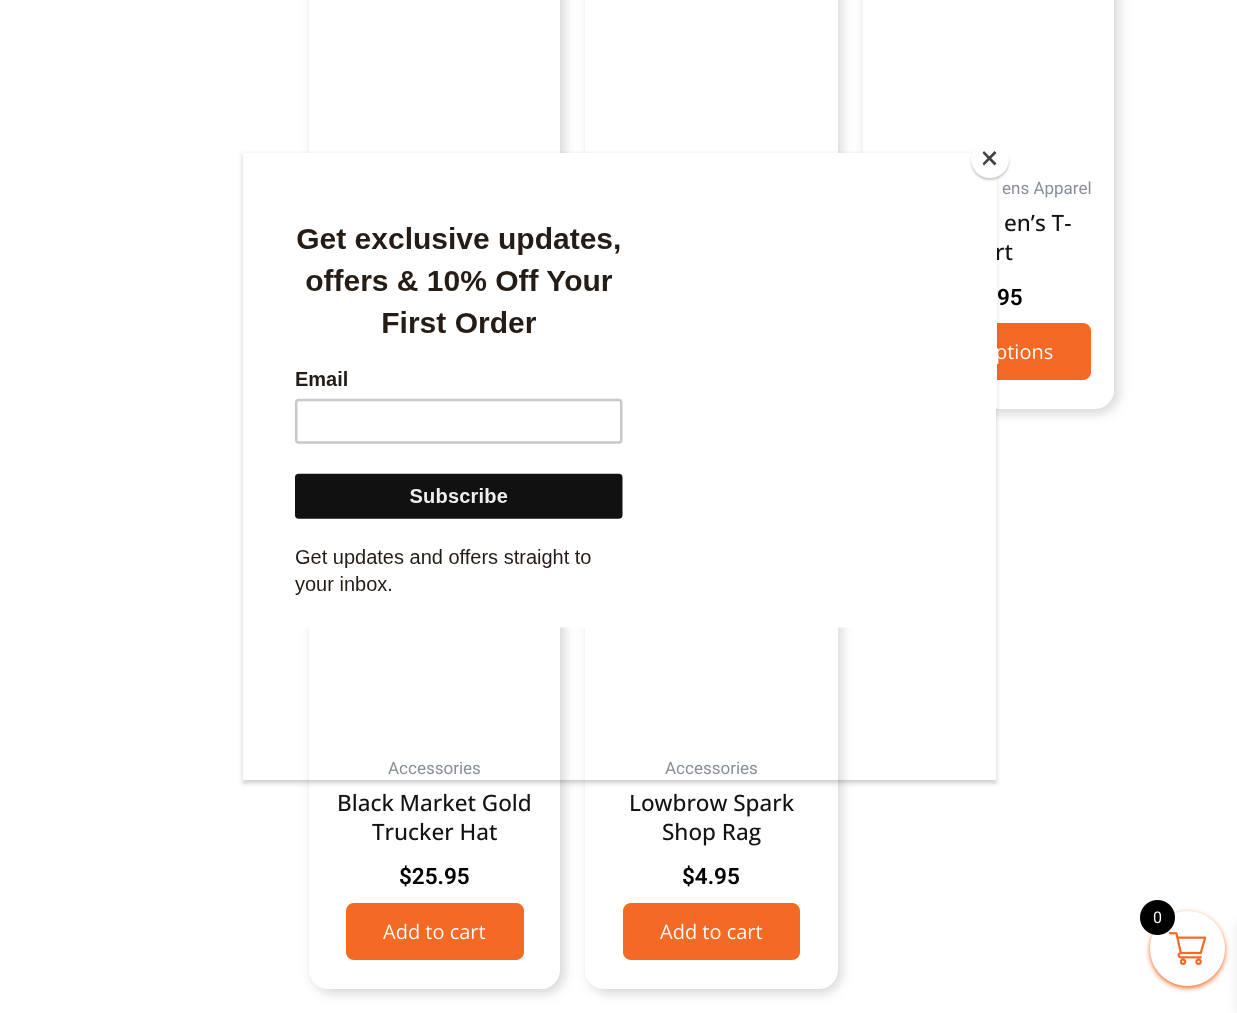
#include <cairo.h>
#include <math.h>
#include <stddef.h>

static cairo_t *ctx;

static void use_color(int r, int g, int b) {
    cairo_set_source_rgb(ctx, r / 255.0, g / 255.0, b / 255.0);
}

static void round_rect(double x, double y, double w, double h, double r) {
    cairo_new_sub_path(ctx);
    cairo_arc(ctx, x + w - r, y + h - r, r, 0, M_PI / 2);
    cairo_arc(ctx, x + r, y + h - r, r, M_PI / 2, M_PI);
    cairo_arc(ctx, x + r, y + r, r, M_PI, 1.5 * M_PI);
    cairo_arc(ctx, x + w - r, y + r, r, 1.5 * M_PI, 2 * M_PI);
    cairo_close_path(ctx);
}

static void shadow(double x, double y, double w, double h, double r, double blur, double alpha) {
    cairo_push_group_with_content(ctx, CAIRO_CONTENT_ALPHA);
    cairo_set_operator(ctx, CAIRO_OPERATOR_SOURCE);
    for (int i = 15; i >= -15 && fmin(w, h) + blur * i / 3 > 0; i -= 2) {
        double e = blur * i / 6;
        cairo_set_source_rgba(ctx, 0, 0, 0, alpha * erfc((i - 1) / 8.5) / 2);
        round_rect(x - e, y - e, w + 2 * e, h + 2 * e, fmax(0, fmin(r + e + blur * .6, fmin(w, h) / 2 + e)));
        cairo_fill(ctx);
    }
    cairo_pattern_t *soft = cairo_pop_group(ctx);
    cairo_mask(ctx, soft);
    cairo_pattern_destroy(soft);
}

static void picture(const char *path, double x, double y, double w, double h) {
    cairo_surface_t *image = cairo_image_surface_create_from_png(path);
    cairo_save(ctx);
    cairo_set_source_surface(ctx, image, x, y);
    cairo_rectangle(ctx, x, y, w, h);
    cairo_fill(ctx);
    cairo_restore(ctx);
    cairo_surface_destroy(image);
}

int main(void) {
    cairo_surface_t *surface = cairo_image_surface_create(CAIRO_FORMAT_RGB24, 1237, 1013);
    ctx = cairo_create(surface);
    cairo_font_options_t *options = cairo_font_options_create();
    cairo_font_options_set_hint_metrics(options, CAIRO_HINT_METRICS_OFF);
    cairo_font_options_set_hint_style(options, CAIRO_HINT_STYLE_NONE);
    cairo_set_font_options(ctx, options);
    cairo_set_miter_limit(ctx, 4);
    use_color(255, 255, 255);
    cairo_paint(ctx);
    use_color(0, 0, 0);
    shadow(313, -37, 251, 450, 19, 6, 0.17);
    use_color(255, 255, 255);
    cairo_rectangle(ctx, 309, 0, 251, 153);
    cairo_fill(ctx);
    use_color(0, 0, 0);
    shadow(589, -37, 252, 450, 19, 6, 0.17);
    use_color(255, 255, 255);
    cairo_rectangle(ctx, 585, 0, 253, 153);
    cairo_fill(ctx);
    use_color(0, 0, 0);
    shadow(866, -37, 252, 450, 19, 6, 0.17);
    use_color(255, 255, 255);
    round_rect(863, -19, 251, 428, 19);
    cairo_fill(ctx);
    use_color(244, 105, 36);
    round_rect(885, 323, 206, 57, 8);
    cairo_fill(ctx);
    use_color(0, 0, 0);
    shadow(313, 463, 251, 530, 19, 6, 0.17);
    use_color(255, 255, 255);
    round_rect(309, 459, 251, 530, 19);
    cairo_fill(ctx);
    use_color(0, 0, 0);
    shadow(589, 463, 252, 530, 19, 6, 0.17);
    use_color(255, 255, 255);
    round_rect(585, 459, 253, 530, 19);
    cairo_fill(ctx);
    cairo_save(ctx);
    cairo_set_fill_rule(ctx, CAIRO_FILL_RULE_EVEN_ODD);
    cairo_new_path(ctx);
    cairo_move_to(ctx, 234, 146);
    cairo_line_to(ctx, 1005, 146);
    cairo_line_to(ctx, 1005, 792);
    cairo_line_to(ctx, 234, 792);
    cairo_close_path(ctx);
    cairo_move_to(ctx, 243, 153);
    cairo_line_to(ctx, 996, 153);
    cairo_line_to(ctx, 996, 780);
    cairo_line_to(ctx, 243, 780);
    cairo_close_path(ctx);
    cairo_clip(ctx);
    use_color(0, 0, 0);
    shadow(243, 155, 753, 628, 0, 2.5, 0.2);
    cairo_restore(ctx);
    cairo_select_font_face(ctx, "Open Sans Medium", CAIRO_FONT_SLANT_NORMAL, CAIRO_FONT_WEIGHT_NORMAL);
    cairo_set_font_size(ctx, 22.5);
    use_color(19, 19, 19);
    cairo_move_to(ctx, 995, 260);
    cairo_show_text(ctx, "rt");
    cairo_select_font_face(ctx, "Open Sans", CAIRO_FONT_SLANT_NORMAL, CAIRO_FONT_WEIGHT_NORMAL);
    cairo_set_font_size(ctx, 20);
    use_color(255, 255, 255);
    cairo_move_to(ctx, 995, 359);
    cairo_show_text(ctx, "ptions");
    picture("img1.png", 295, 153, 702, 475);
    use_color(0, 0, 0);
    shadow(971, 143, 38, 37, 18.5, 1, 0.2);
    use_color(255, 255, 255);
    cairo_arc(ctx, 990, 159, 19, 0, 2 * M_PI);
    cairo_fill(ctx);
    use_color(65, 65, 65);
    cairo_new_path(ctx);
    cairo_move_to(ctx, 994.5, 151);
    cairo_line_to(ctx, 996.5, 153);
    cairo_line_to(ctx, 984, 165.5);
    cairo_line_to(ctx, 982.5, 163.5);
    cairo_close_path(ctx);
    cairo_fill(ctx);
    cairo_new_path(ctx);
    cairo_move_to(ctx, 982.5, 153);
    cairo_line_to(ctx, 984, 151);
    cairo_line_to(ctx, 996.5, 163.5);
    cairo_line_to(ctx, 994.5, 165.5);
    cairo_close_path(ctx);
    cairo_fill(ctx);
    cairo_select_font_face(ctx, "Roboto", CAIRO_FONT_SLANT_NORMAL, CAIRO_FONT_WEIGHT_NORMAL);
    cairo_set_font_size(ctx, 17);
    use_color(133, 141, 153);
    cairo_move_to(ctx, 1002, 194);
    cairo_show_text(ctx, "ens Apparel");
    cairo_select_font_face(ctx, "Open Sans Medium", CAIRO_FONT_SLANT_NORMAL, CAIRO_FONT_WEIGHT_NORMAL);
    cairo_set_font_size(ctx, 22.5);
    use_color(19, 19, 19);
    cairo_move_to(ctx, 1004, 231);
    cairo_show_text(ctx, "en’s T-");
    cairo_select_font_face(ctx, "Roboto SemiBold", CAIRO_FONT_SLANT_NORMAL, CAIRO_FONT_WEIGHT_NORMAL);
    use_color(0, 0, 0);
    cairo_move_to(ctx, 997, 305);
    cairo_show_text(ctx, "95");
    cairo_select_font_face(ctx, "Roboto", CAIRO_FONT_SLANT_NORMAL, CAIRO_FONT_WEIGHT_NORMAL);
    cairo_set_font_size(ctx, 17);
    use_color(133, 141, 153);
    cairo_move_to(ctx, 388, 774);
    cairo_show_text(ctx, "Accessories");
    cairo_select_font_face(ctx, "Open Sans Medium", CAIRO_FONT_SLANT_NORMAL, CAIRO_FONT_WEIGHT_NORMAL);
    cairo_set_font_size(ctx, 22.5);
    use_color(19, 19, 19);
    cairo_move_to(ctx, 337, 811);
    cairo_show_text(ctx, "Black Market Gold");
    cairo_move_to(ctx, 372, 840);
    cairo_show_text(ctx, "Trucker Hat");
    cairo_select_font_face(ctx, "Roboto SemiBold", CAIRO_FONT_SLANT_NORMAL, CAIRO_FONT_WEIGHT_NORMAL);
    use_color(0, 0, 0);
    cairo_move_to(ctx, 399, 884);
    cairo_show_text(ctx, "$25.95");
    use_color(244, 105, 36);
    round_rect(346, 903, 178, 57, 8);
    cairo_fill(ctx);
    cairo_select_font_face(ctx, "Open Sans", CAIRO_FONT_SLANT_NORMAL, CAIRO_FONT_WEIGHT_NORMAL);
    cairo_set_font_size(ctx, 20);
    use_color(255, 255, 255);
    cairo_move_to(ctx, 383, 939);
    cairo_show_text(ctx, "Add to cart");
    cairo_select_font_face(ctx, "Roboto", CAIRO_FONT_SLANT_NORMAL, CAIRO_FONT_WEIGHT_NORMAL);
    cairo_set_font_size(ctx, 17);
    use_color(133, 141, 153);
    cairo_move_to(ctx, 665, 774);
    cairo_show_text(ctx, "Accessories");
    cairo_select_font_face(ctx, "Open Sans Medium", CAIRO_FONT_SLANT_NORMAL, CAIRO_FONT_WEIGHT_NORMAL);
    cairo_set_font_size(ctx, 22.5);
    use_color(19, 19, 19);
    cairo_move_to(ctx, 629, 811);
    cairo_show_text(ctx, "Lowbrow Spark");
    cairo_move_to(ctx, 662, 840);
    cairo_show_text(ctx, "Shop Rag");
    cairo_select_font_face(ctx, "Roboto SemiBold", CAIRO_FONT_SLANT_NORMAL, CAIRO_FONT_WEIGHT_NORMAL);
    use_color(0, 0, 0);
    cairo_move_to(ctx, 682, 884);
    cairo_show_text(ctx, "$4.95");
    use_color(244, 105, 36);
    round_rect(623, 903, 177, 57, 8);
    cairo_fill(ctx);
    cairo_select_font_face(ctx, "Open Sans", CAIRO_FONT_SLANT_NORMAL, CAIRO_FONT_WEIGHT_NORMAL);
    cairo_set_font_size(ctx, 20);
    use_color(255, 255, 255);
    cairo_move_to(ctx, 660, 939);
    cairo_show_text(ctx, "Add to cart");
    use_color(244, 106, 36);
    shadow(1150, 913, 75, 75, 37.5, 2.5, 1);
    use_color(0, 0, 0);
    shadow(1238, 925, 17, 83, 0, 6, 0.1);
    use_color(255, 255, 255);
    cairo_arc(ctx, 1187.5, 948.5, 37.5, 0, 2 * M_PI);
    cairo_fill(ctx);
    picture("img2.png", 1168, 932, 39, 34);
    use_color(0, 0, 0);
    cairo_arc(ctx, 1157.5, 917.5, 17.5, 0, 2 * M_PI);
    cairo_fill(ctx);
    cairo_select_font_face(ctx, "Roboto", CAIRO_FONT_SLANT_NORMAL, CAIRO_FONT_WEIGHT_NORMAL);
    cairo_set_font_size(ctx, 16);
    use_color(255, 255, 255);
    cairo_move_to(ctx, 1153, 923);
    cairo_show_text(ctx, "0");
    cairo_surface_write_to_png(surface, "result.png");
    cairo_font_options_destroy(options);
    cairo_destroy(ctx);
    cairo_surface_destroy(surface);
    return 0;
}
